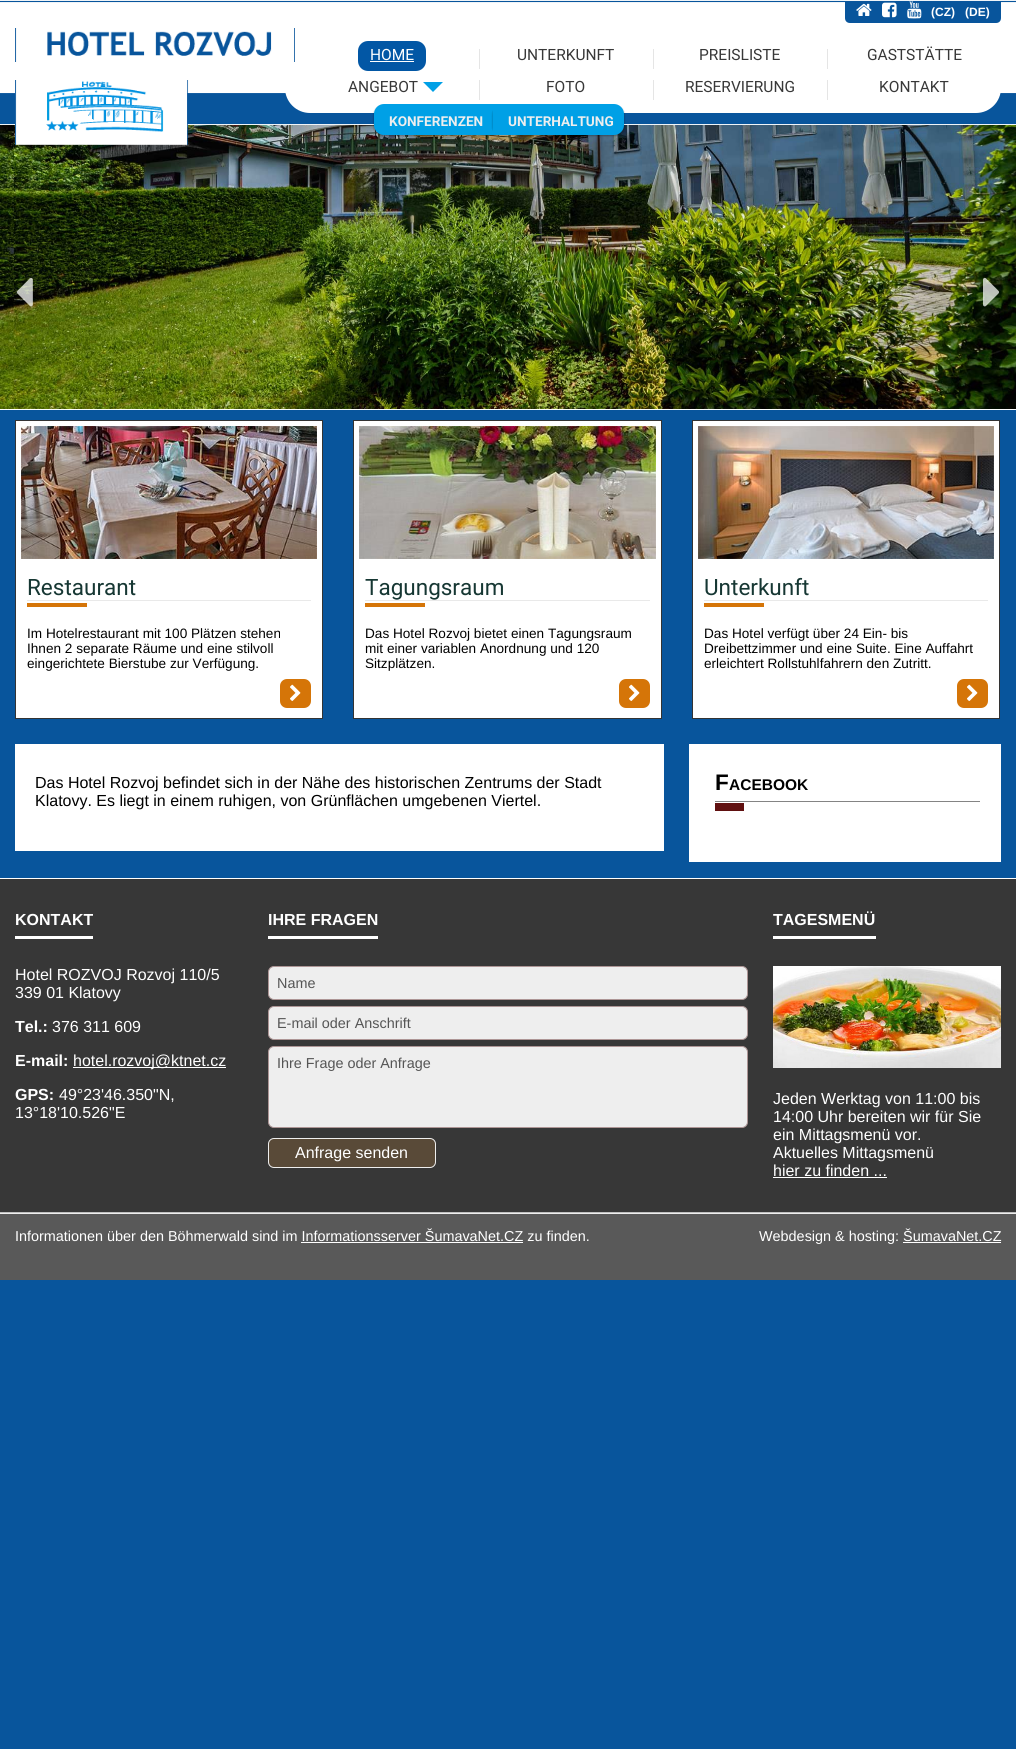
#include <cairo.h>
#include <math.h>
#include <stddef.h>

static cairo_t *ctx;

static void use_color(int r, int g, int b) {
    cairo_set_source_rgb(ctx, r / 255.0, g / 255.0, b / 255.0);
}

static void round_rect(double x, double y, double w, double h, double r) {
    cairo_new_sub_path(ctx);
    cairo_arc(ctx, x + w - r, y + h - r, r, 0, M_PI / 2);
    cairo_arc(ctx, x + r, y + h - r, r, M_PI / 2, M_PI);
    cairo_arc(ctx, x + r, y + r, r, M_PI, 1.5 * M_PI);
    cairo_arc(ctx, x + w - r, y + r, r, 1.5 * M_PI, 2 * M_PI);
    cairo_close_path(ctx);
}

static void shadow(double x, double y, double w, double h, double r, double blur, double alpha) {
    cairo_push_group_with_content(ctx, CAIRO_CONTENT_ALPHA);
    cairo_set_operator(ctx, CAIRO_OPERATOR_SOURCE);
    for (int i = 15; i >= -15 && fmin(w, h) + blur * i / 3 > 0; i -= 2) {
        double e = blur * i / 6;
        cairo_set_source_rgba(ctx, 0, 0, 0, alpha * erfc((i - 1) / 8.5) / 2);
        round_rect(x - e, y - e, w + 2 * e, h + 2 * e, fmax(0, fmin(r + e + blur * .6, fmin(w, h) / 2 + e)));
        cairo_fill(ctx);
    }
    cairo_pattern_t *soft = cairo_pop_group(ctx);
    cairo_mask(ctx, soft);
    cairo_pattern_destroy(soft);
}

static void picture(const char *path, double x, double y, double w, double h) {
    cairo_surface_t *image = cairo_image_surface_create_from_png(path);
    cairo_save(ctx);
    cairo_set_source_surface(ctx, image, x, y);
    cairo_rectangle(ctx, x, y, w, h);
    cairo_fill(ctx);
    cairo_restore(ctx);
    cairo_surface_destroy(image);
}

int main(void) {
    cairo_surface_t *surface = cairo_image_surface_create(CAIRO_FORMAT_RGB24, 1016, 1749);
    ctx = cairo_create(surface);
    cairo_font_options_t *options = cairo_font_options_create();
    cairo_font_options_set_hint_metrics(options, CAIRO_HINT_METRICS_OFF);
    cairo_font_options_set_hint_style(options, CAIRO_HINT_STYLE_NONE);
    cairo_set_font_options(ctx, options);
    cairo_set_miter_limit(ctx, 4);
    use_color(8, 85, 156);
    cairo_paint(ctx);
    picture("img1.png", 0, 0, 1016, 125);
    use_color(8, 85, 156);
    cairo_new_path(ctx);
    cairo_move_to(ctx, 845, 1);
    cairo_line_to(ctx, 1001, 1);
    cairo_line_to(ctx, 1001, 18);
    cairo_curve_to(ctx, 1001, 21, 999, 23, 996, 23);
    cairo_line_to(ctx, 850, 23);
    cairo_curve_to(ctx, 847, 23, 845, 21, 845, 18);
    cairo_close_path(ctx);
    cairo_fill(ctx);
    picture("img2.png", 856, 3, 16, 13);
    picture("img3.png", 882, 2, 15, 16);
    picture("img4.png", 907, 1, 15, 18);
    cairo_select_font_face(ctx, "Liberation Sans", CAIRO_FONT_SLANT_NORMAL, CAIRO_FONT_WEIGHT_BOLD);
    cairo_set_font_size(ctx, 12);
    use_color(255, 255, 255);
    cairo_move_to(ctx, 931, 16);
    cairo_show_text(ctx, "(CZ)");
    cairo_move_to(ctx, 965, 16);
    cairo_show_text(ctx, "(DE)");
    round_rect(285, 47, 716, 66, 25);
    cairo_fill(ctx);
    picture("img6.png", 0, 125, 1016, 284);
    picture("img5.png", 15, 28, 280, 117);
    use_color(2, 87, 165);
    round_rect(358, 41, 68, 30, 10);
    cairo_fill(ctx);
    cairo_select_font_face(ctx, "Roboto", CAIRO_FONT_SLANT_NORMAL, CAIRO_FONT_WEIGHT_NORMAL);
    cairo_set_font_size(ctx, 15.5);
    use_color(255, 255, 255);
    cairo_move_to(ctx, 370, 60);
    cairo_show_text(ctx, "HOME");
    cairo_rectangle(ctx, 370, 61, 44, 1);
    cairo_fill(ctx);
    use_color(229, 229, 229);
    cairo_rectangle(ctx, 479, 49, 1, 20);
    cairo_fill(ctx);
    use_color(56, 56, 56);
    cairo_move_to(ctx, 517, 60);
    cairo_show_text(ctx, "UNTERKUNFT");
    use_color(229, 229, 229);
    cairo_rectangle(ctx, 653, 49, 1, 20);
    cairo_fill(ctx);
    use_color(56, 56, 56);
    cairo_move_to(ctx, 699, 60);
    cairo_show_text(ctx, "PREISLISTE");
    use_color(229, 229, 229);
    cairo_rectangle(ctx, 827, 49, 1, 20);
    cairo_fill(ctx);
    use_color(56, 56, 56);
    cairo_move_to(ctx, 867, 60);
    cairo_show_text(ctx, "GASTSTÄTTE");
    cairo_move_to(ctx, 348, 92);
    cairo_show_text(ctx, "ANGEBOT");
    use_color(0, 160, 230);
    cairo_new_path(ctx);
    cairo_move_to(ctx, 423, 82);
    cairo_line_to(ctx, 443, 82);
    cairo_line_to(ctx, 433, 92);
    cairo_close_path(ctx);
    cairo_fill(ctx);
    use_color(0, 0, 0);
    shadow(373, 105, 119, 31, 10, 0.5, 0.1);
    shadow(375, 105, 119, 31, 10, 0.5, 0.1);
    shadow(374, 106, 119, 31, 10, 1, 0.1);
    use_color(0, 160, 230);
    cairo_new_path(ctx);
    cairo_move_to(ctx, 384, 104);
    cairo_line_to(ctx, 493, 104);
    cairo_line_to(ctx, 493, 135);
    cairo_line_to(ctx, 384, 135);
    cairo_curve_to(ctx, 378.5, 135, 374, 130.5, 374, 125);
    cairo_line_to(ctx, 374, 114);
    cairo_curve_to(ctx, 374, 108.5, 378.5, 104, 384, 104);
    cairo_close_path(ctx);
    cairo_fill(ctx);
    cairo_select_font_face(ctx, "Roboto", CAIRO_FONT_SLANT_NORMAL, CAIRO_FONT_WEIGHT_BOLD);
    cairo_set_font_size(ctx, 13.6);
    use_color(238, 238, 238);
    cairo_move_to(ctx, 389, 126);
    cairo_show_text(ctx, "KONFERENZEN");
    use_color(0, 0, 0);
    shadow(492, 105, 131, 31, 10, 0.5, 0.1);
    shadow(494, 105, 131, 31, 10, 0.5, 0.1);
    shadow(493, 106, 131, 31, 10, 1, 0.1);
    use_color(0, 160, 230);
    cairo_new_path(ctx);
    cairo_move_to(ctx, 493, 104);
    cairo_line_to(ctx, 614, 104);
    cairo_curve_to(ctx, 619.5, 104, 624, 108.5, 624, 114);
    cairo_line_to(ctx, 624, 125);
    cairo_curve_to(ctx, 624, 130.5, 619.5, 135, 614, 135);
    cairo_line_to(ctx, 493, 135);
    cairo_close_path(ctx);
    cairo_fill(ctx);
    use_color(238, 238, 238);
    cairo_move_to(ctx, 508, 126);
    cairo_show_text(ctx, "UNTERHALTUNG");
    use_color(229, 229, 229);
    cairo_rectangle(ctx, 479, 80, 1, 20);
    cairo_fill(ctx);
    cairo_select_font_face(ctx, "Roboto", CAIRO_FONT_SLANT_NORMAL, CAIRO_FONT_WEIGHT_NORMAL);
    cairo_set_font_size(ctx, 15.5);
    use_color(56, 56, 56);
    cairo_move_to(ctx, 546, 92);
    cairo_show_text(ctx, "FOTO");
    use_color(229, 229, 229);
    cairo_rectangle(ctx, 653, 80, 1, 20);
    cairo_fill(ctx);
    use_color(56, 56, 56);
    cairo_move_to(ctx, 685, 92);
    cairo_show_text(ctx, "RESERVIERUNG");
    use_color(229, 229, 229);
    cairo_rectangle(ctx, 827, 80, 1, 20);
    cairo_fill(ctx);
    use_color(56, 56, 56);
    cairo_move_to(ctx, 879, 92);
    cairo_show_text(ctx, "KONTAKT");
    use_color(255, 255, 255);
    cairo_rectangle(ctx, 0, 409, 1016, 1);
    cairo_fill(ctx);
    picture("img7.png", 16, 277, 17, 30);
    picture("img8.png", 983, 277, 16, 30);
    cairo_rectangle(ctx, 15.5, 420.5, 307, 298);
    cairo_fill_preserve(ctx);
    use_color(51, 51, 51);
    cairo_set_line_width(ctx, 1);
    cairo_stroke(ctx);
    picture("img9.png", 21, 426, 296, 133);
    use_color(233, 233, 233);
    cairo_rectangle(ctx, 27, 600, 284, 1);
    cairo_fill(ctx);
    cairo_set_font_size(ctx, 22.5);
    use_color(22, 55, 51);
    cairo_move_to(ctx, 27, 595);
    cairo_show_text(ctx, "Restaurant");
    use_color(213, 117, 8);
    cairo_rectangle(ctx, 27, 603, 60, 4);
    cairo_fill(ctx);
    cairo_select_font_face(ctx, "Liberation Sans", CAIRO_FONT_SLANT_NORMAL, CAIRO_FONT_WEIGHT_NORMAL);
    cairo_set_font_size(ctx, 13.6);
    use_color(0, 0, 0);
    cairo_move_to(ctx, 27, 638);
    cairo_show_text(ctx, "Im Hotelrestaurant mit 100 Plätzen stehen");
    cairo_move_to(ctx, 27, 653);
    cairo_show_text(ctx, "Ihnen 2 separate Räume und eine stilvoll");
    cairo_move_to(ctx, 27, 668);
    cairo_show_text(ctx, "eingerichtete Bierstube zur Verfügung.");
    use_color(213, 117, 8);
    round_rect(280, 679, 31, 29, 7);
    cairo_fill(ctx);
    picture("img10.png", 290, 684, 11, 17);
    use_color(255, 255, 255);
    cairo_rectangle(ctx, 353.5, 420.5, 308, 298);
    cairo_fill_preserve(ctx);
    use_color(51, 51, 51);
    cairo_stroke(ctx);
    picture("img11.png", 359, 426, 297, 133);
    use_color(233, 233, 233);
    cairo_rectangle(ctx, 365, 600, 285, 1);
    cairo_fill(ctx);
    cairo_select_font_face(ctx, "Roboto", CAIRO_FONT_SLANT_NORMAL, CAIRO_FONT_WEIGHT_NORMAL);
    cairo_set_font_size(ctx, 22.5);
    use_color(22, 55, 51);
    cairo_move_to(ctx, 365, 595);
    cairo_show_text(ctx, "Tagungsraum");
    use_color(213, 117, 8);
    cairo_rectangle(ctx, 365, 603, 60, 4);
    cairo_fill(ctx);
    cairo_select_font_face(ctx, "Liberation Sans", CAIRO_FONT_SLANT_NORMAL, CAIRO_FONT_WEIGHT_NORMAL);
    cairo_set_font_size(ctx, 13.6);
    use_color(0, 0, 0);
    cairo_move_to(ctx, 365, 638);
    cairo_show_text(ctx, "Das Hotel Rozvoj bietet einen Tagungsraum");
    cairo_move_to(ctx, 365, 653);
    cairo_show_text(ctx, "mit einer variablen Anordnung und 120");
    cairo_move_to(ctx, 365, 668);
    cairo_show_text(ctx, "Sitzplätzen.");
    use_color(213, 117, 8);
    round_rect(619, 679, 31, 29, 7);
    cairo_fill(ctx);
    picture("img10.png", 629, 684, 11, 17);
    use_color(255, 255, 255);
    cairo_rectangle(ctx, 692.5, 420.5, 307, 298);
    cairo_fill_preserve(ctx);
    use_color(51, 51, 51);
    cairo_stroke(ctx);
    picture("img12.png", 698, 426, 296, 133);
    use_color(233, 233, 233);
    cairo_rectangle(ctx, 704, 600, 284, 1);
    cairo_fill(ctx);
    cairo_select_font_face(ctx, "Roboto", CAIRO_FONT_SLANT_NORMAL, CAIRO_FONT_WEIGHT_NORMAL);
    cairo_set_font_size(ctx, 22.5);
    use_color(22, 55, 51);
    cairo_move_to(ctx, 704, 595);
    cairo_show_text(ctx, "Unterkunft");
    use_color(213, 117, 8);
    cairo_rectangle(ctx, 704, 603, 60, 4);
    cairo_fill(ctx);
    cairo_select_font_face(ctx, "Liberation Sans", CAIRO_FONT_SLANT_NORMAL, CAIRO_FONT_WEIGHT_NORMAL);
    cairo_set_font_size(ctx, 13.6);
    use_color(0, 0, 0);
    cairo_move_to(ctx, 704, 638);
    cairo_show_text(ctx, "Das Hotel verfügt über 24 Ein- bis");
    cairo_move_to(ctx, 704, 653);
    cairo_show_text(ctx, "Dreibettzimmer und eine Suite. Eine Auffahrt");
    cairo_move_to(ctx, 704, 668);
    cairo_show_text(ctx, "erleichtert Rollstuhlfahrern den Zutritt.");
    use_color(213, 117, 8);
    round_rect(957, 679, 31, 29, 7);
    cairo_fill(ctx);
    picture("img10.png", 967, 684, 11, 17);
    use_color(255, 255, 255);
    cairo_rectangle(ctx, 15, 744, 649, 107);
    cairo_fill(ctx);
    cairo_set_font_size(ctx, 16);
    use_color(0, 0, 0);
    cairo_move_to(ctx, 35, 788);
    cairo_show_text(ctx, "Das Hotel Rozvoj befindet sich in der Nähe des historischen Zentrums der Stadt");
    cairo_move_to(ctx, 35, 806);
    cairo_show_text(ctx, "Klatovy. Es liegt in einem ruhigen, von Grünflächen umgebenen Viertel.");
    use_color(255, 255, 255);
    cairo_rectangle(ctx, 689, 744, 312, 118);
    cairo_fill(ctx);
    use_color(132, 132, 132);
    cairo_rectangle(ctx, 715, 801, 265, 1);
    cairo_fill(ctx);
    cairo_select_font_face(ctx, "Liberation Sans", CAIRO_FONT_SLANT_NORMAL, CAIRO_FONT_WEIGHT_BOLD);
    cairo_set_font_size(ctx, 22.5);
    use_color(0, 0, 0);
    cairo_move_to(ctx, 715, 790);
    cairo_show_text(ctx, "F");
    cairo_set_font_size(ctx, 15.5);
    cairo_move_to(ctx, 729, 790);
    cairo_show_text(ctx, "ACEBOOK");
    use_color(96, 16, 16);
    cairo_rectangle(ctx, 715, 803, 29, 8);
    cairo_fill(ctx);
    use_color(55, 55, 55);
    cairo_rectangle(ctx, 0, 879, 1016, 333);
    cairo_fill(ctx);
    use_color(255, 255, 255);
    cairo_rectangle(ctx, 0, 878, 1016, 1);
    cairo_fill(ctx);
    use_color(192, 192, 192);
    cairo_rectangle(ctx, 0, 1212, 1016, 1);
    cairo_fill(ctx);
    cairo_set_font_size(ctx, 16);
    use_color(255, 255, 255);
    cairo_move_to(ctx, 15, 925);
    cairo_show_text(ctx, "KONTAKT");
    cairo_rectangle(ctx, 15, 936, 78, 3);
    cairo_fill(ctx);
    cairo_select_font_face(ctx, "Liberation Sans", CAIRO_FONT_SLANT_NORMAL, CAIRO_FONT_WEIGHT_NORMAL);
    cairo_move_to(ctx, 15, 980);
    cairo_show_text(ctx, "Hotel ROZVOJ Rozvoj 110/5");
    cairo_move_to(ctx, 15, 998);
    cairo_show_text(ctx, "339 01 Klatovy");
    cairo_select_font_face(ctx, "Liberation Sans", CAIRO_FONT_SLANT_NORMAL, CAIRO_FONT_WEIGHT_BOLD);
    cairo_move_to(ctx, 15, 1032);
    cairo_show_text(ctx, "Tel.:");
    cairo_select_font_face(ctx, "Liberation Sans", CAIRO_FONT_SLANT_NORMAL, CAIRO_FONT_WEIGHT_NORMAL);
    cairo_move_to(ctx, 52, 1032);
    cairo_show_text(ctx, "376 311 609");
    cairo_select_font_face(ctx, "Liberation Sans", CAIRO_FONT_SLANT_NORMAL, CAIRO_FONT_WEIGHT_BOLD);
    cairo_move_to(ctx, 15, 1066);
    cairo_show_text(ctx, "E-mail:");
    cairo_rectangle(ctx, 73, 1067, 153, 1);
    cairo_fill(ctx);
    cairo_select_font_face(ctx, "Liberation Sans", CAIRO_FONT_SLANT_NORMAL, CAIRO_FONT_WEIGHT_NORMAL);
    cairo_move_to(ctx, 73, 1066);
    cairo_show_text(ctx, "hotel.rozvoj@ktnet.cz");
    cairo_select_font_face(ctx, "Liberation Sans", CAIRO_FONT_SLANT_NORMAL, CAIRO_FONT_WEIGHT_BOLD);
    cairo_move_to(ctx, 15, 1100);
    cairo_show_text(ctx, "GPS:");
    cairo_select_font_face(ctx, "Liberation Sans", CAIRO_FONT_SLANT_NORMAL, CAIRO_FONT_WEIGHT_NORMAL);
    cairo_move_to(ctx, 59, 1100);
    cairo_show_text(ctx, "49°23'46.350\"N,");
    cairo_move_to(ctx, 15, 1118);
    cairo_show_text(ctx, "13°18'10.526\"E");
    cairo_select_font_face(ctx, "Liberation Sans", CAIRO_FONT_SLANT_NORMAL, CAIRO_FONT_WEIGHT_BOLD);
    cairo_move_to(ctx, 268, 925);
    cairo_show_text(ctx, "IHRE FRAGEN");
    cairo_rectangle(ctx, 268, 936, 110, 3);
    cairo_fill(ctx);
    use_color(238, 238, 238);
    round_rect(268.5, 966.5, 479, 33, 5.5);
    cairo_fill_preserve(ctx);
    use_color(173, 149, 149);
    cairo_stroke(ctx);
    cairo_select_font_face(ctx, "Liberation Sans", CAIRO_FONT_SLANT_NORMAL, CAIRO_FONT_WEIGHT_NORMAL);
    cairo_set_font_size(ctx, 14.4);
    use_color(85, 85, 85);
    cairo_move_to(ctx, 277, 988);
    cairo_show_text(ctx, "Name");
    use_color(238, 238, 238);
    round_rect(268.5, 1006.5, 479, 33, 5.5);
    cairo_fill_preserve(ctx);
    use_color(173, 149, 149);
    cairo_stroke(ctx);
    use_color(85, 85, 85);
    cairo_move_to(ctx, 277, 1028);
    cairo_show_text(ctx, "E-mail oder Anschrift");
    use_color(238, 238, 238);
    round_rect(268.5, 1046.5, 479, 81, 5.5);
    cairo_fill_preserve(ctx);
    use_color(173, 149, 149);
    cairo_stroke(ctx);
    use_color(85, 85, 85);
    cairo_move_to(ctx, 277, 1068);
    cairo_show_text(ctx, "Ihre Frage oder Anfrage");
    use_color(89, 74, 56);
    round_rect(268.5, 1138.5, 167, 29, 5.5);
    cairo_fill_preserve(ctx);
    use_color(238, 238, 238);
    cairo_stroke(ctx);
    cairo_set_font_size(ctx, 16);
    use_color(255, 255, 255);
    cairo_move_to(ctx, 295, 1158);
    cairo_show_text(ctx, "Anfrage senden");
    cairo_select_font_face(ctx, "Liberation Sans", CAIRO_FONT_SLANT_NORMAL, CAIRO_FONT_WEIGHT_BOLD);
    cairo_move_to(ctx, 773, 925);
    cairo_show_text(ctx, "TAGESMENÜ");
    cairo_rectangle(ctx, 773, 936, 103, 3);
    cairo_fill(ctx);
    picture("img13.png", 773, 966, 228, 102);
    cairo_select_font_face(ctx, "Liberation Sans", CAIRO_FONT_SLANT_NORMAL, CAIRO_FONT_WEIGHT_NORMAL);
    cairo_move_to(ctx, 773, 1104);
    cairo_show_text(ctx, "Jeden Werktag von 11:00 bis");
    cairo_move_to(ctx, 773, 1122);
    cairo_show_text(ctx, "14:00 Uhr bereiten wir für Sie");
    cairo_move_to(ctx, 773, 1140);
    cairo_show_text(ctx, "ein Mittagsmenü vor.");
    cairo_move_to(ctx, 773, 1158);
    cairo_show_text(ctx, "Aktuelles Mittagsmenü");
    cairo_move_to(ctx, 773, 1176);
    cairo_show_text(ctx, "hier zu finden ...");
    cairo_rectangle(ctx, 773, 1177, 114, 1);
    cairo_fill(ctx);
    use_color(89, 89, 89);
    cairo_rectangle(ctx, 0, 1214, 1016, 66);
    cairo_fill(ctx);
    use_color(238, 238, 238);
    cairo_rectangle(ctx, 0, 1213, 1016, 1);
    cairo_fill(ctx);
    cairo_set_font_size(ctx, 14.4);
    use_color(255, 255, 255);
    cairo_move_to(ctx, 15, 1241);
    cairo_show_text(ctx, "Informationen über den Böhmerwald sind im Informationsserver ŠumavaNet.CZ zu finden.");
    cairo_rectangle(ctx, 301, 1242, 222, 1);
    cairo_fill(ctx);
    cairo_move_to(ctx, 759, 1241);
    cairo_show_text(ctx, "Webdesign & hosting: ŠumavaNet.CZ");
    cairo_rectangle(ctx, 903, 1242, 98, 1);
    cairo_fill(ctx);
    cairo_surface_write_to_png(surface, "result.png");
    cairo_font_options_destroy(options);
    cairo_destroy(ctx);
    cairo_surface_destroy(surface);
    return 0;
}
